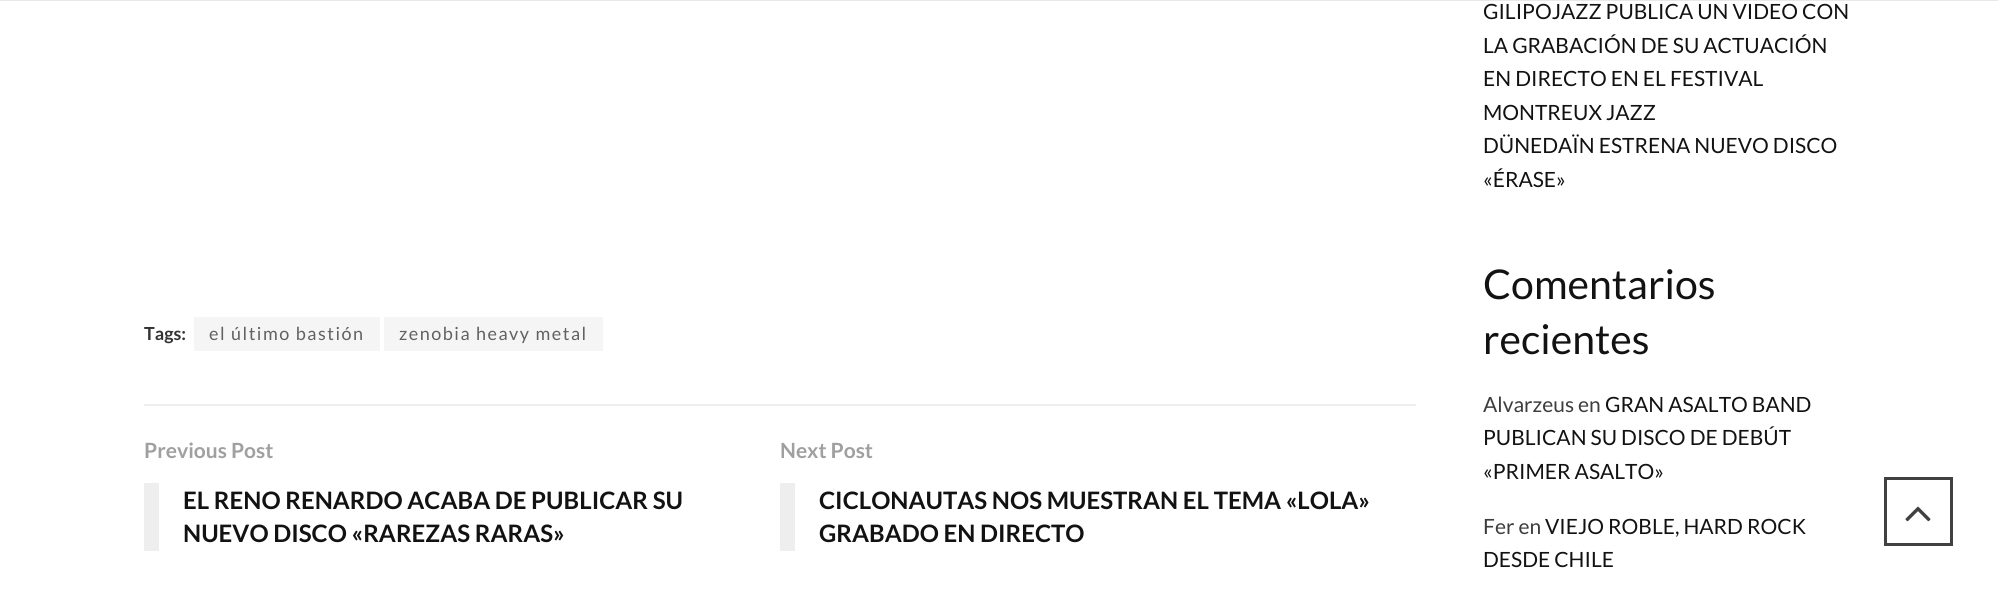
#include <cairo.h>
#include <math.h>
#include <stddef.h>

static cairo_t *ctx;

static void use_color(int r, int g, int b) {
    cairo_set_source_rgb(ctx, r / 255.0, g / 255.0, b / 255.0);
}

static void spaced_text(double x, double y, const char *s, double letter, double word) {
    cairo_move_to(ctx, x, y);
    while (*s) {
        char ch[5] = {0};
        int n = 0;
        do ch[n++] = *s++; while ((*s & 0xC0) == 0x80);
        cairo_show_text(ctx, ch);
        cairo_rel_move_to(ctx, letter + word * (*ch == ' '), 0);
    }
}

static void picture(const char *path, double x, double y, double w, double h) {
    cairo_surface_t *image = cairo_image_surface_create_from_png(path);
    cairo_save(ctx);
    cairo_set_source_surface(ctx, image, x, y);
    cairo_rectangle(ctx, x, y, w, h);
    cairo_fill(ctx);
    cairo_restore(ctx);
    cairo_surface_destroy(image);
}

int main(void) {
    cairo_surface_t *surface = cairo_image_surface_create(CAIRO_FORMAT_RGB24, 1998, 591);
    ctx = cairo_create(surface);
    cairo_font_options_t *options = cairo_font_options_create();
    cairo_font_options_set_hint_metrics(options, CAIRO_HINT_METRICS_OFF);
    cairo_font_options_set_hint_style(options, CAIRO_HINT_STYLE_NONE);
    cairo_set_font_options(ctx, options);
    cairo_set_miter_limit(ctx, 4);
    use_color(255, 255, 255);
    cairo_paint(ctx);
    use_color(232, 232, 232);
    cairo_rectangle(ctx, 0, 0, 1998, 1);
    cairo_fill(ctx);
    cairo_select_font_face(ctx, "Lato", CAIRO_FONT_SLANT_NORMAL, CAIRO_FONT_WEIGHT_BOLD);
    cairo_set_font_size(ctx, 18);
    use_color(51, 51, 51);
    cairo_move_to(ctx, 144, 340);
    cairo_show_text(ctx, "Tags:");
    use_color(245, 245, 245);
    cairo_rectangle(ctx, 194, 317, 186, 34);
    cairo_fill(ctx);
    cairo_select_font_face(ctx, "Lato", CAIRO_FONT_SLANT_NORMAL, CAIRO_FONT_WEIGHT_NORMAL);
    use_color(97, 97, 97);
    spaced_text(209, 340, "el último bastión", 1.5, 0);
    use_color(245, 245, 245);
    cairo_rectangle(ctx, 384, 317, 219, 34);
    cairo_fill(ctx);
    use_color(97, 97, 97);
    spaced_text(399, 340, "zenobia heavy metal", 1.5, 0);
    use_color(238, 238, 238);
    cairo_rectangle(ctx, 144, 404, 1272, 2);
    cairo_fill(ctx);
    cairo_select_font_face(ctx, "Lato", CAIRO_FONT_SLANT_NORMAL, CAIRO_FONT_WEIGHT_BOLD);
    cairo_set_font_size(ctx, 21);
    use_color(160, 160, 160);
    cairo_move_to(ctx, 144, 458);
    cairo_show_text(ctx, "Previous Post");
    use_color(238, 238, 238);
    cairo_rectangle(ctx, 144, 483, 15, 68);
    cairo_fill(ctx);
    cairo_set_font_size(ctx, 24);
    use_color(18, 18, 18);
    cairo_move_to(ctx, 183, 509);
    cairo_show_text(ctx, "EL RENO RENARDO ACABA DE PUBLICAR SU");
    cairo_move_to(ctx, 183, 542);
    cairo_show_text(ctx, "NUEVO DISCO «RAREZAS RARAS»");
    cairo_set_font_size(ctx, 21);
    use_color(160, 160, 160);
    cairo_move_to(ctx, 780, 458);
    cairo_show_text(ctx, "Next Post");
    use_color(238, 238, 238);
    cairo_rectangle(ctx, 780, 483, 15, 68);
    cairo_fill(ctx);
    cairo_set_font_size(ctx, 24);
    use_color(18, 18, 18);
    cairo_move_to(ctx, 819, 509);
    cairo_show_text(ctx, "CICLONAUTAS NOS MUESTRAN EL TEMA «LOLA»");
    cairo_move_to(ctx, 819, 542);
    cairo_show_text(ctx, "GRABADO EN DIRECTO");
    cairo_select_font_face(ctx, "Lato", CAIRO_FONT_SLANT_NORMAL, CAIRO_FONT_WEIGHT_NORMAL);
    cairo_set_font_size(ctx, 21);
    cairo_move_to(ctx, 1483, 19);
    cairo_show_text(ctx, "GILIPOJAZZ PUBLICA UN VIDEO CON");
    cairo_move_to(ctx, 1483, 53);
    cairo_show_text(ctx, "LA GRABACIÓN DE SU ACTUACIÓN");
    cairo_move_to(ctx, 1483, 86);
    cairo_show_text(ctx, "EN DIRECTO EN EL FESTIVAL");
    cairo_move_to(ctx, 1483, 120);
    cairo_show_text(ctx, "MONTREUX JAZZ");
    cairo_move_to(ctx, 1483, 153);
    cairo_show_text(ctx, "DÜNEDAÏN ESTRENA NUEVO DISCO");
    cairo_move_to(ctx, 1483, 187);
    cairo_show_text(ctx, "«ÉRASE»");
    cairo_set_font_size(ctx, 41);
    cairo_move_to(ctx, 1483, 299);
    cairo_show_text(ctx, "Comentarios");
    cairo_move_to(ctx, 1483, 354);
    cairo_show_text(ctx, "recientes");
    cairo_set_font_size(ctx, 21);
    use_color(61, 61, 61);
    cairo_move_to(ctx, 1483, 412);
    cairo_show_text(ctx, "Alvarzeus en");
    use_color(18, 18, 18);
    cairo_move_to(ctx, 1605, 412);
    cairo_show_text(ctx, "GRAN ASALTO BAND");
    cairo_move_to(ctx, 1483, 445);
    cairo_show_text(ctx, "PUBLICAN SU DISCO DE DEBÚT");
    cairo_move_to(ctx, 1483, 479);
    cairo_show_text(ctx, "«PRIMER ASALTO»");
    use_color(61, 61, 61);
    cairo_move_to(ctx, 1483, 534);
    cairo_show_text(ctx, "Fer en");
    use_color(18, 18, 18);
    cairo_move_to(ctx, 1545, 534);
    cairo_show_text(ctx, "VIEJO ROBLE, HARD ROCK");
    cairo_move_to(ctx, 1483, 567);
    cairo_show_text(ctx, "DESDE CHILE");
    cairo_rectangle(ctx, 1885.5, 478.5, 66, 66);
    use_color(65, 65, 65);
    cairo_set_line_width(ctx, 3);
    cairo_stroke(ctx);
    picture("img1.png", 1905, 506, 26, 16);
    cairo_surface_write_to_png(surface, "result.png");
    cairo_font_options_destroy(options);
    cairo_destroy(ctx);
    cairo_surface_destroy(surface);
    return 0;
}
